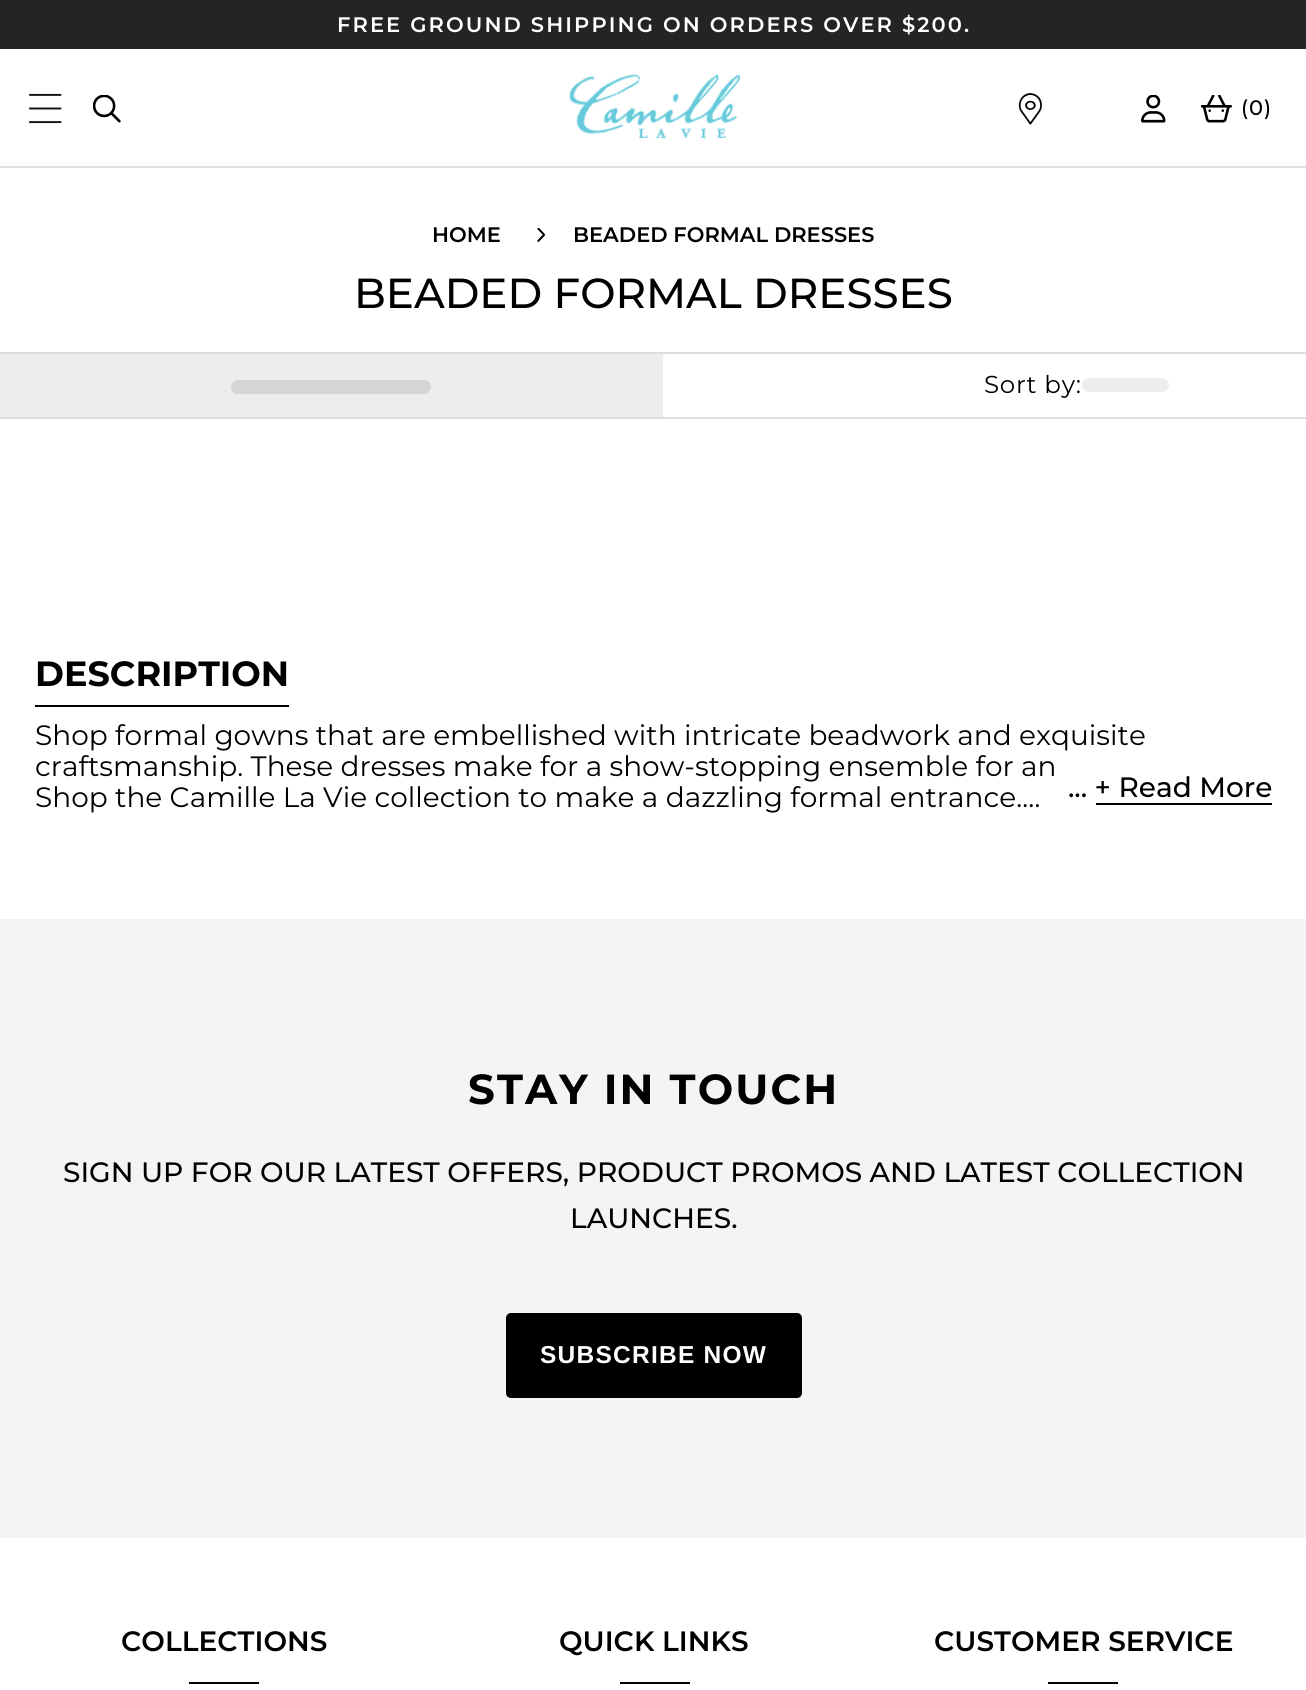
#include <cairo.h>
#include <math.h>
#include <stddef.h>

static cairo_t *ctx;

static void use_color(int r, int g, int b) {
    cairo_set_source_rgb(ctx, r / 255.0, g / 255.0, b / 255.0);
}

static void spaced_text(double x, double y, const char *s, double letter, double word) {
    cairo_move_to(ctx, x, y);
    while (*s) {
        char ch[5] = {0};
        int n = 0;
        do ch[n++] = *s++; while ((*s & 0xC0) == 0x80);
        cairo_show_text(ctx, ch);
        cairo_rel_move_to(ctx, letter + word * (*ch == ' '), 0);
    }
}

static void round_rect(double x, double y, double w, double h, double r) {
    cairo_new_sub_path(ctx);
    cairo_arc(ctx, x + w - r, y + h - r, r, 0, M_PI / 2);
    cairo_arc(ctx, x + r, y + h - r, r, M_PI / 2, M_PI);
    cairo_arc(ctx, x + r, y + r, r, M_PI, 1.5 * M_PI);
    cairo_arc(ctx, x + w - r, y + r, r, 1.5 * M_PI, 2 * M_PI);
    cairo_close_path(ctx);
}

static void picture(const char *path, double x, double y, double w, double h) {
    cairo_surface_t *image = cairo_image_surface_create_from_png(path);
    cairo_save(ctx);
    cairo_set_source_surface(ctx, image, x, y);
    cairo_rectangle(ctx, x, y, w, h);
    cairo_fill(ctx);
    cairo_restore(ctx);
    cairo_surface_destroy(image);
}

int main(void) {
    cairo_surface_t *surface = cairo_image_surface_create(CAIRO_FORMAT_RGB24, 1306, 1690);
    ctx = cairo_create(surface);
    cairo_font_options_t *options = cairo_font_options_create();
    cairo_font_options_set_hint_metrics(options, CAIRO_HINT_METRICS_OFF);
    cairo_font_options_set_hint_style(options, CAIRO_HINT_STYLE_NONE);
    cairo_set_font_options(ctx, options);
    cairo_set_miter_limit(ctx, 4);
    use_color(255, 255, 255);
    cairo_paint(ctx);
    use_color(36, 36, 36);
    cairo_rectangle(ctx, 0, 0, 1306, 49);
    cairo_fill(ctx);
    cairo_select_font_face(ctx, "Montserrat SemiBold", CAIRO_FONT_SLANT_NORMAL, CAIRO_FONT_WEIGHT_NORMAL);
    cairo_set_font_size(ctx, 21);
    use_color(255, 255, 255);
    spaced_text(337, 32, "FREE GROUND SHIPPING ON ORDERS OVER $200.", 2.1, 0);
    use_color(225, 225, 225);
    cairo_rectangle(ctx, 0, 166, 1306, 2);
    cairo_fill(ctx);
    picture("img1.png", 29, 93, 33, 31);
    picture("img2.png", 93, 95, 28, 28);
    picture("img3.png", 569, 74, 172, 65);
    picture("img4.png", 1018, 93, 24, 32);
    picture("img5.png", 1141, 95, 25, 28);
    picture("img6.png", 1201, 95, 31, 28);
    cairo_select_font_face(ctx, "Montserrat Medium", CAIRO_FONT_SLANT_NORMAL, CAIRO_FONT_WEIGHT_NORMAL);
    use_color(0, 0, 0);
    spaced_text(1241, 115, "(0", 1, 0);
    spaced_text(1264, 115, ")", 1, 0);
    cairo_select_font_face(ctx, "Montserrat SemiBold", CAIRO_FONT_SLANT_NORMAL, CAIRO_FONT_WEIGHT_NORMAL);
    cairo_move_to(ctx, 432, 242);
    cairo_show_text(ctx, "HOME");
    picture("img7.png", 537, 228, 8, 14);
    cairo_move_to(ctx, 573, 242);
    cairo_show_text(ctx, "BEADED FORMAL DRESSES");
    cairo_select_font_face(ctx, "Montserrat Medium", CAIRO_FONT_SLANT_NORMAL, CAIRO_FONT_WEIGHT_NORMAL);
    cairo_set_font_size(ctx, 42);
    cairo_move_to(ctx, 354, 308);
    cairo_show_text(ctx, "BEADED FORMAL DRESSES");
    use_color(221, 221, 221);
    cairo_rectangle(ctx, 0, 352, 1306, 2);
    cairo_fill(ctx);
    cairo_rectangle(ctx, 0, 417, 1306, 2);
    cairo_fill(ctx);
    use_color(237, 237, 237);
    cairo_rectangle(ctx, 0, 354, 663, 63);
    cairo_fill(ctx);
    use_color(213, 213, 213);
    round_rect(231, 380, 200, 14, 7);
    cairo_fill(ctx);
    cairo_select_font_face(ctx, "Montserrat", CAIRO_FONT_SLANT_NORMAL, CAIRO_FONT_WEIGHT_NORMAL);
    cairo_set_font_size(ctx, 24.5);
    use_color(0, 0, 0);
    spaced_text(984, 393, "Sort by:", 0.75, 0);
    use_color(237, 237, 237);
    round_rect(1082, 378, 87, 14, 7);
    cairo_fill(ctx);
    use_color(0, 0, 0);
    cairo_rectangle(ctx, 35, 705, 254, 2);
    cairo_fill(ctx);
    cairo_select_font_face(ctx, "Montserrat", CAIRO_FONT_SLANT_NORMAL, CAIRO_FONT_WEIGHT_BOLD);
    cairo_set_font_size(ctx, 35);
    cairo_move_to(ctx, 35, 686);
    cairo_show_text(ctx, "DESCRIPTION");
    cairo_select_font_face(ctx, "Montserrat", CAIRO_FONT_SLANT_NORMAL, CAIRO_FONT_WEIGHT_NORMAL);
    cairo_set_font_size(ctx, 28);
    cairo_move_to(ctx, 35, 745);
    cairo_show_text(ctx, "Shop formal gowns that are embellished with intricate beadwork and exquisite");
    cairo_move_to(ctx, 35, 776);
    cairo_show_text(ctx, "craftsmanship. These dresses make for a show-stopping ensemble for an");
    cairo_move_to(ctx, 35, 807);
    cairo_show_text(ctx, "Shop the Camille La Vie collection to make a dazzling formal entrance.…");
    cairo_select_font_face(ctx, "Montserrat Medium", CAIRO_FONT_SLANT_NORMAL, CAIRO_FONT_WEIGHT_NORMAL);
    cairo_move_to(ctx, 1068, 797);
    cairo_show_text(ctx, "... + Read More");
    cairo_rectangle(ctx, 1096, 803, 176, 2);
    cairo_fill(ctx);
    use_color(244, 244, 244);
    cairo_rectangle(ctx, 0, 919, 1306, 619);
    cairo_fill(ctx);
    cairo_select_font_face(ctx, "Montserrat", CAIRO_FONT_SLANT_NORMAL, CAIRO_FONT_WEIGHT_BOLD);
    cairo_set_font_size(ctx, 42);
    use_color(0, 0, 0);
    spaced_text(468, 1104, "STAY IN TOUCH", 2.1, 0);
    cairo_select_font_face(ctx, "Montserrat Medium", CAIRO_FONT_SLANT_NORMAL, CAIRO_FONT_WEIGHT_NORMAL);
    cairo_set_font_size(ctx, 28);
    cairo_move_to(ctx, 63, 1182);
    cairo_show_text(ctx, "SIGN UP FOR OUR LATEST OFFERS, PRODUCT PROMOS AND LATEST COLLECTION");
    cairo_move_to(ctx, 570, 1228);
    cairo_show_text(ctx, "LAUNCHES.");
    round_rect(506, 1313, 296, 85, 5);
    cairo_fill(ctx);
    cairo_select_font_face(ctx, "Liberation Sans", CAIRO_FONT_SLANT_NORMAL, CAIRO_FONT_WEIGHT_BOLD);
    cairo_set_font_size(ctx, 24.5);
    use_color(255, 255, 255);
    spaced_text(540, 1363, "SUBSCRIBE NOW", 1.25, 0);
    cairo_select_font_face(ctx, "Montserrat SemiBold", CAIRO_FONT_SLANT_NORMAL, CAIRO_FONT_WEIGHT_NORMAL);
    cairo_set_font_size(ctx, 28);
    use_color(0, 0, 0);
    cairo_move_to(ctx, 121, 1651);
    cairo_show_text(ctx, "COLLECTIONS");
    cairo_rectangle(ctx, 189, 1682, 70, 2);
    cairo_fill(ctx);
    cairo_move_to(ctx, 559, 1651);
    cairo_show_text(ctx, "QUICK LINKS");
    cairo_rectangle(ctx, 620, 1682, 70, 2);
    cairo_fill(ctx);
    cairo_move_to(ctx, 934, 1651);
    cairo_show_text(ctx, "CUSTOMER SERVICE");
    cairo_rectangle(ctx, 1048, 1682, 70, 2);
    cairo_fill(ctx);
    cairo_surface_write_to_png(surface, "result.png");
    cairo_font_options_destroy(options);
    cairo_destroy(ctx);
    cairo_surface_destroy(surface);
    return 0;
}
